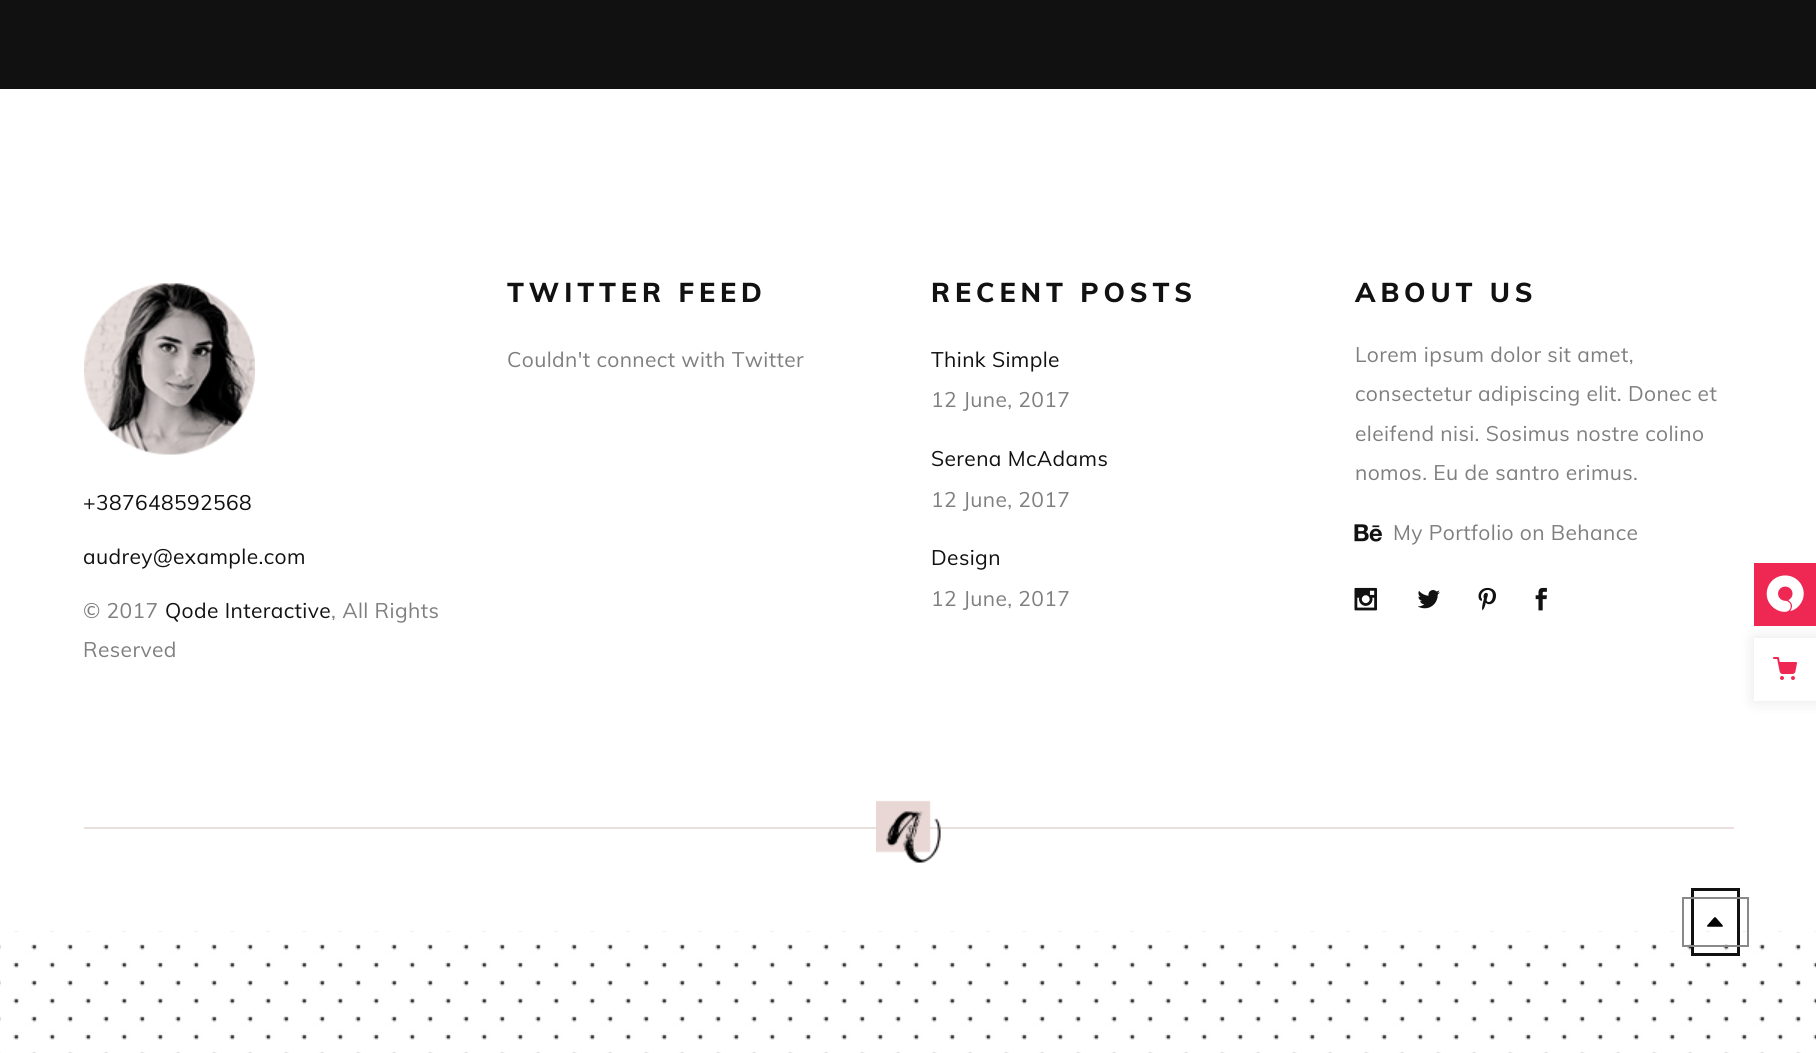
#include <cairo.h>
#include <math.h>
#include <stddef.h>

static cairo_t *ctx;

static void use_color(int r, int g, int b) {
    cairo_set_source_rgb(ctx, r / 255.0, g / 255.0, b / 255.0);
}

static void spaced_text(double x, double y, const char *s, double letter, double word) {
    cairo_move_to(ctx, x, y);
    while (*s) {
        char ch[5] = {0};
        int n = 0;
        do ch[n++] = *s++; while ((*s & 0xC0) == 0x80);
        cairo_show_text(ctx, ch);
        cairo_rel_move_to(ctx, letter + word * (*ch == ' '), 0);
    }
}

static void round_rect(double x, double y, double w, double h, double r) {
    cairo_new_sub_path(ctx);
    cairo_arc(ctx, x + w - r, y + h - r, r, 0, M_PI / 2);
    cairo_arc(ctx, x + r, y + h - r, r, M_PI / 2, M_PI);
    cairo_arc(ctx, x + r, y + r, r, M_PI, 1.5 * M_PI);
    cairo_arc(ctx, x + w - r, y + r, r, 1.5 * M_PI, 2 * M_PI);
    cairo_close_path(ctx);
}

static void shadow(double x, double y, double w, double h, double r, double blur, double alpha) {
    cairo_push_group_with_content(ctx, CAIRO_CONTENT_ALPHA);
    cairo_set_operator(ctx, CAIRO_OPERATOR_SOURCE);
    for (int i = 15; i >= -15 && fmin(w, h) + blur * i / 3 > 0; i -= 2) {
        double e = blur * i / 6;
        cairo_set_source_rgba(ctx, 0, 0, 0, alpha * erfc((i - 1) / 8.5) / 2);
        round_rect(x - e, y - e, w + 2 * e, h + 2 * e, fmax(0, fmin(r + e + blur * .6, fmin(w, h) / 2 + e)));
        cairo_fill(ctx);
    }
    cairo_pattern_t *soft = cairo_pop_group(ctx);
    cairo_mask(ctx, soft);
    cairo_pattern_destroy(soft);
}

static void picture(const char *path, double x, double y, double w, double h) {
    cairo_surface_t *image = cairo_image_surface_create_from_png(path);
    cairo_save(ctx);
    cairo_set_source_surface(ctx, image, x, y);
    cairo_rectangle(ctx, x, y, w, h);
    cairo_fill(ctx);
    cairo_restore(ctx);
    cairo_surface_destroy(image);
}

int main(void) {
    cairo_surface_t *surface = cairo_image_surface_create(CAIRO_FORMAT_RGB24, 1816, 1053);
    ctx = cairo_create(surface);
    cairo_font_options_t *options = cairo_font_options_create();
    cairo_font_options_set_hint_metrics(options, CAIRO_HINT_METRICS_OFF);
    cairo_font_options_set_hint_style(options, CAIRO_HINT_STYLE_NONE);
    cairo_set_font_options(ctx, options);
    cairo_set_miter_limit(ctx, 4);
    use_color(255, 255, 255);
    cairo_paint(ctx);
    use_color(17, 17, 17);
    cairo_rectangle(ctx, 0, 0, 1816, 89);
    cairo_fill(ctx);
    cairo_select_font_face(ctx, "Muli ExtraBold", CAIRO_FONT_SLANT_NORMAL, CAIRO_FONT_WEIGHT_NORMAL);
    cairo_set_font_size(ctx, 27);
    spaced_text(507, 302, "TWITTER FEED", 4.9, 0);
    cairo_select_font_face(ctx, "Muli", CAIRO_FONT_SLANT_NORMAL, CAIRO_FONT_WEIGHT_NORMAL);
    cairo_set_font_size(ctx, 21);
    use_color(127, 127, 127);
    spaced_text(507, 367, "Couldn't connect with Twitter", 0.4, 0);
    cairo_select_font_face(ctx, "Muli ExtraBold", CAIRO_FONT_SLANT_NORMAL, CAIRO_FONT_WEIGHT_NORMAL);
    cairo_set_font_size(ctx, 27);
    use_color(17, 17, 17);
    spaced_text(931, 302, "RECENT POSTS", 4.9, 0);
    cairo_select_font_face(ctx, "Muli", CAIRO_FONT_SLANT_NORMAL, CAIRO_FONT_WEIGHT_NORMAL);
    cairo_set_font_size(ctx, 21);
    spaced_text(931, 367, "Think Simple", 0.4, 0);
    use_color(127, 127, 127);
    spaced_text(931, 407, "12 June, 2017", 0.4, 0);
    use_color(17, 17, 17);
    spaced_text(931, 466, "Serena McAdams", 0.4, 0);
    use_color(127, 127, 127);
    spaced_text(931, 507, "12 June, 2017", 0.4, 0);
    use_color(17, 17, 17);
    spaced_text(931, 565, "Design", 0.4, 0);
    use_color(127, 127, 127);
    spaced_text(931, 606, "12 June, 2017", 0.4, 0);
    cairo_select_font_face(ctx, "Muli ExtraBold", CAIRO_FONT_SLANT_NORMAL, CAIRO_FONT_WEIGHT_NORMAL);
    cairo_set_font_size(ctx, 27);
    use_color(17, 17, 17);
    spaced_text(1355, 302, "ABOUT US", 4.9, 0);
    cairo_select_font_face(ctx, "Muli", CAIRO_FONT_SLANT_NORMAL, CAIRO_FONT_WEIGHT_NORMAL);
    cairo_set_font_size(ctx, 21);
    use_color(127, 127, 127);
    spaced_text(1355, 362, "Lorem ipsum dolor sit amet,", 0.4, 0);
    spaced_text(1355, 401, "consectetur adipiscing elit. Donec et", 0.4, 0);
    spaced_text(1355, 441, "eleifend nisi. Sosimus nostre colino", 0.4, 0);
    spaced_text(1355, 480, "nomos. Eu de santro erimus.", 0.4, 0);
    picture("img1.png", 1354, 524, 28, 18);
    spaced_text(1393, 540, "My Portfolio on Behance", 0.4, 0);
    picture("img2.png", 1354, 587, 23, 24);
    picture("img3.png", 1417, 590, 23, 19);
    picture("img4.png", 1478, 587, 18, 24);
    picture("img5.png", 1535, 587, 12, 24);
    picture("img6.png", 84, 283, 171, 172);
    use_color(17, 17, 17);
    spaced_text(83, 510, "+387648592568", 0.4, 0);
    spaced_text(83, 564, "audrey@example.com", 0.4, 0);
    use_color(127, 127, 127);
    spaced_text(83, 618, "© 2017", 0.4, 0);
    use_color(17, 17, 17);
    spaced_text(165, 618, "Qode Interactive", 0.4, 0);
    use_color(127, 127, 127);
    spaced_text(331, 618, ", All Rights", 0.4, 0);
    spaced_text(83, 657, "Reserved", 0.4, 0);
    use_color(233, 223, 221);
    cairo_rectangle(ctx, 84, 827, 1650, 2);
    cairo_fill(ctx);
    picture("img7.png", 876, 800, 65, 63);
    picture("img8.png", 0, 931, 1816, 122);
    picture("img9.png", 1707, 917, 16, 10);
    cairo_rectangle(ctx, 1692.5, 889.5, 46, 65);
    use_color(17, 17, 17);
    cairo_set_line_width(ctx, 3);
    cairo_stroke(ctx);
    cairo_rectangle(ctx, 1683, 898, 65, 48);
    use_color(137, 137, 137);
    cairo_set_line_width(ctx, 2);
    cairo_stroke(ctx);
    use_color(239, 40, 83);
    cairo_rectangle(ctx, 1754, 563, 62, 63);
    cairo_fill(ctx);
    picture("img10.png", 1766, 575, 38, 37);
    use_color(0, 0, 0);
    shadow(1754, 638, 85, 63, 0, 7.5, 0.1);
    use_color(255, 255, 255);
    cairo_rectangle(ctx, 1754, 638, 62, 63);
    cairo_fill(ctx);
    picture("img11.png", 1773, 657, 24, 23);
    cairo_surface_write_to_png(surface, "result.png");
    cairo_font_options_destroy(options);
    cairo_destroy(ctx);
    cairo_surface_destroy(surface);
    return 0;
}
